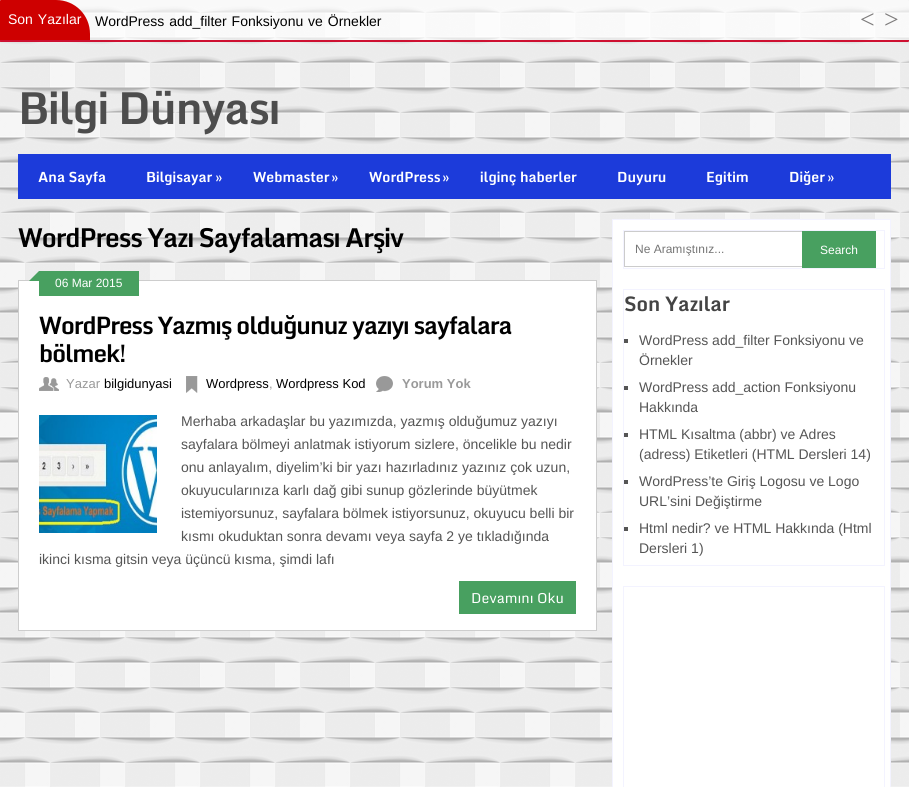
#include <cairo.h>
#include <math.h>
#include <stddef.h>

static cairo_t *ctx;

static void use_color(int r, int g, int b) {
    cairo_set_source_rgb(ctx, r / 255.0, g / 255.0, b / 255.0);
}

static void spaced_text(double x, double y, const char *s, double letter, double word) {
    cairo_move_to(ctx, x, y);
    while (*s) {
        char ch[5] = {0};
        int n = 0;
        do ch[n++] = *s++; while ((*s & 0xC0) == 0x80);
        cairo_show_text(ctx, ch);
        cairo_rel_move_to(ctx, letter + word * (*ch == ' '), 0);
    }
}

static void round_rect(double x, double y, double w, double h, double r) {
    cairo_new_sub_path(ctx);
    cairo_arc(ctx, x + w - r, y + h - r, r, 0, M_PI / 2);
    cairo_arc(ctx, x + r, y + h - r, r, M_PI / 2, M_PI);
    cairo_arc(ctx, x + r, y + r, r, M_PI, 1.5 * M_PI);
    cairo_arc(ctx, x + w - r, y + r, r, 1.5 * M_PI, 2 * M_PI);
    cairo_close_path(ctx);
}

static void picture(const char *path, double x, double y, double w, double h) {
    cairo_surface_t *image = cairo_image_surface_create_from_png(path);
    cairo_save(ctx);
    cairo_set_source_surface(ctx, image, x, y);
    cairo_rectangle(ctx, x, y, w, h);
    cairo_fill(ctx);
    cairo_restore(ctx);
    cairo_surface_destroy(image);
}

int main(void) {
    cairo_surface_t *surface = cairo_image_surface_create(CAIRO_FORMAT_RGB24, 909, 787);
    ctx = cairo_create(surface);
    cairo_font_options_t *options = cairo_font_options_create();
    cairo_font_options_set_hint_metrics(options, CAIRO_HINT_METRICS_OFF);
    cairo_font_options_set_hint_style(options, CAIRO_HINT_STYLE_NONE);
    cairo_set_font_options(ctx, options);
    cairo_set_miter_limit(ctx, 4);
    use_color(235, 235, 235);
    cairo_paint(ctx);
    picture("img1.png", 0, 6, 909, 781);
    cairo_set_source_rgba(ctx, 1, 1, 1, 0.7);
    round_rect(0, 0, 909, 42, 1);
    cairo_fill(ctx);
    use_color(206, 0, 0);
    cairo_new_path(ctx);
    cairo_move_to(ctx, 1, 0);
    cairo_line_to(ctx, 56, 0);
    cairo_curve_to(ctx, 75, 0, 90, 15, 90, 34);
    cairo_line_to(ctx, 90, 42);
    cairo_line_to(ctx, 1, 42);
    cairo_curve_to(ctx, 0.5, 42, 0, 41.5, 0, 41);
    cairo_line_to(ctx, 0, 1);
    cairo_curve_to(ctx, 0, 0.5, 0.5, 0, 1, 0);
    cairo_close_path(ctx);
    cairo_fill(ctx);
    cairo_select_font_face(ctx, "Liberation Sans", CAIRO_FONT_SLANT_NORMAL, CAIRO_FONT_WEIGHT_NORMAL);
    cairo_set_font_size(ctx, 14);
    use_color(255, 255, 255);
    spaced_text(8, 24, "Son Yazılar", 0, 1);
    use_color(206, 16, 49);
    cairo_new_path(ctx);
    cairo_move_to(ctx, 0, 40);
    cairo_line_to(ctx, 909, 40);
    cairo_line_to(ctx, 909, 41);
    cairo_curve_to(ctx, 909, 41.5, 908.5, 42, 908, 42);
    cairo_line_to(ctx, 1, 42);
    cairo_curve_to(ctx, 0.5, 42, 0, 41.5, 0, 41);
    cairo_close_path(ctx);
    cairo_fill(ctx);
    use_color(0, 0, 0);
    spaced_text(95, 26, "WordPress add_filter Fonksiyonu ve Örnekler", 0, 1);
    cairo_select_font_face(ctx, "Liberation Serif", CAIRO_FONT_SLANT_NORMAL, CAIRO_FONT_WEIGHT_NORMAL);
    cairo_set_font_size(ctx, 26);
    use_color(125, 123, 123);
    cairo_move_to(ctx, 860, 28);
    cairo_show_text(ctx, "<");
    cairo_move_to(ctx, 884, 28);
    cairo_show_text(ctx, ">");
    cairo_select_font_face(ctx, "Monda", CAIRO_FONT_SLANT_NORMAL, CAIRO_FONT_WEIGHT_BOLD);
    cairo_set_font_size(ctx, 44);
    use_color(77, 77, 77);
    spaced_text(18, 124, "Bilgi Dünyası", -1, 0);
    use_color(28, 59, 218);
    cairo_rectangle(ctx, 18, 154, 873, 45);
    cairo_fill(ctx);
    cairo_set_font_size(ctx, 14);
    use_color(255, 255, 255);
    cairo_move_to(ctx, 38, 182);
    cairo_show_text(ctx, "Ana Sayfa");
    cairo_move_to(ctx, 146, 182);
    cairo_show_text(ctx, "Bilgisayar");
    cairo_move_to(ctx, 215, 182);
    cairo_show_text(ctx, "»");
    cairo_move_to(ctx, 253, 182);
    cairo_show_text(ctx, "Webmaster");
    cairo_move_to(ctx, 331, 182);
    cairo_show_text(ctx, "»");
    cairo_move_to(ctx, 369, 182);
    cairo_show_text(ctx, "WordPress");
    cairo_move_to(ctx, 442, 182);
    cairo_show_text(ctx, "»");
    cairo_move_to(ctx, 480, 182);
    cairo_show_text(ctx, "ilginç haberler");
    cairo_move_to(ctx, 617, 182);
    cairo_show_text(ctx, "Duyuru");
    cairo_move_to(ctx, 706, 182);
    cairo_show_text(ctx, "Egitim");
    cairo_move_to(ctx, 789, 182);
    cairo_show_text(ctx, "Diğer");
    cairo_move_to(ctx, 827, 182);
    cairo_show_text(ctx, "»");
    cairo_set_font_size(ctx, 26);
    use_color(0, 0, 0);
    spaced_text(18, 247, "WordPress Yazı Sayfalaması Arşiv", -1, 0);
    use_color(255, 255, 255);
    cairo_rectangle(ctx, 18.5, 280.5, 578, 350);
    cairo_fill_preserve(ctx);
    use_color(205, 205, 205);
    cairo_set_line_width(ctx, 1);
    cairo_stroke(ctx);
    use_color(72, 160, 96);
    cairo_rectangle(ctx, 39, 271, 100, 25);
    cairo_fill(ctx);
    cairo_new_path(ctx);
    cairo_move_to(ctx, 39, 281);
    cairo_line_to(ctx, 29, 281);
    cairo_line_to(ctx, 39, 271);
    cairo_close_path(ctx);
    cairo_fill(ctx);
    cairo_select_font_face(ctx, "Liberation Sans", CAIRO_FONT_SLANT_NORMAL, CAIRO_FONT_WEIGHT_NORMAL);
    cairo_set_font_size(ctx, 12);
    use_color(255, 255, 255);
    cairo_move_to(ctx, 55, 287);
    cairo_show_text(ctx, "06 Mar 2015");
    cairo_select_font_face(ctx, "Monda", CAIRO_FONT_SLANT_NORMAL, CAIRO_FONT_WEIGHT_BOLD);
    cairo_set_font_size(ctx, 24);
    use_color(0, 0, 0);
    spaced_text(39, 334, "WordPress Yazmış olduğunuz yazıyı sayfalara", -1, 0);
    spaced_text(39, 362, "bölmek!", -1, 0);
    picture("img2.png", 39, 377, 20, 14);
    cairo_select_font_face(ctx, "Liberation Sans", CAIRO_FONT_SLANT_NORMAL, CAIRO_FONT_WEIGHT_NORMAL);
    cairo_set_font_size(ctx, 13);
    use_color(153, 153, 153);
    cairo_move_to(ctx, 66, 388);
    cairo_show_text(ctx, "Yazar");
    use_color(0, 0, 0);
    cairo_move_to(ctx, 104, 388);
    cairo_show_text(ctx, "bilgidunyasi");
    picture("img3.png", 186, 376, 12, 17);
    cairo_move_to(ctx, 206, 388);
    cairo_show_text(ctx, "Wordpress");
    use_color(153, 153, 153);
    cairo_move_to(ctx, 269, 388);
    cairo_show_text(ctx, ",");
    use_color(0, 0, 0);
    cairo_move_to(ctx, 276, 388);
    cairo_show_text(ctx, "Wordpress Kod");
    picture("img4.png", 376, 376, 17, 16);
    cairo_select_font_face(ctx, "Liberation Sans", CAIRO_FONT_SLANT_NORMAL, CAIRO_FONT_WEIGHT_BOLD);
    use_color(153, 153, 153);
    cairo_move_to(ctx, 402, 388);
    cairo_show_text(ctx, "Yorum Yok");
    picture("img5.png", 39, 415, 118, 118);
    cairo_select_font_face(ctx, "Liberation Sans", CAIRO_FONT_SLANT_NORMAL, CAIRO_FONT_WEIGHT_NORMAL);
    cairo_set_font_size(ctx, 14);
    use_color(85, 85, 85);
    cairo_move_to(ctx, 181, 426);
    cairo_show_text(ctx, "Merhaba arkadaşlar bu yazımızda, yazmış olduğumuz yazıyı");
    cairo_move_to(ctx, 181, 449);
    cairo_show_text(ctx, "sayfalara bölmeyi anlatmak istiyorum sizlere, öncelikle bu nedir");
    cairo_move_to(ctx, 181, 472);
    cairo_show_text(ctx, "onu anlayalım, diyelim’ki bir yazı hazırladınız yazınız çok uzun,");
    cairo_move_to(ctx, 181, 495);
    cairo_show_text(ctx, "okuyucularınıza karlı dağ gibi sunup gözlerinde büyütmek");
    cairo_move_to(ctx, 181, 518);
    cairo_show_text(ctx, "istemiyorsunuz, sayfalara bölmek istiyorsunuz, okuyucu belli bir");
    cairo_move_to(ctx, 181, 541);
    cairo_show_text(ctx, "kısmı okuduktan sonra devamı veya sayfa 2 ye tıkladığında");
    cairo_move_to(ctx, 39, 564);
    cairo_show_text(ctx, "ikinci kısma gitsin veya üçüncü kısma, şimdi lafı");
    use_color(72, 160, 96);
    cairo_rectangle(ctx, 459, 581, 117, 33);
    cairo_fill(ctx);
    cairo_select_font_face(ctx, "Monda", CAIRO_FONT_SLANT_NORMAL, CAIRO_FONT_WEIGHT_NORMAL);
    use_color(255, 255, 255);
    cairo_move_to(ctx, 471, 603);
    cairo_show_text(ctx, "Devamını Oku");
    cairo_rectangle(ctx, 612.5, 219.5, 278, 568);
    cairo_fill_preserve(ctx);
    use_color(243, 243, 255);
    cairo_stroke(ctx);
    cairo_rectangle(ctx, 623.5, 230.5, 261, 38);
    cairo_stroke(ctx);
    use_color(204, 204, 204);
    cairo_rectangle(ctx, 624, 231, 178, 1);
    cairo_fill(ctx);
    cairo_rectangle(ctx, 624, 266, 178, 1);
    cairo_fill(ctx);
    cairo_rectangle(ctx, 624, 231, 1, 36);
    cairo_fill(ctx);
    cairo_select_font_face(ctx, "Liberation Sans", CAIRO_FONT_SLANT_NORMAL, CAIRO_FONT_WEIGHT_NORMAL);
    cairo_set_font_size(ctx, 12);
    use_color(117, 117, 117);
    cairo_move_to(ctx, 635, 253);
    cairo_show_text(ctx, "Ne Aramıştınız...");
    use_color(72, 160, 96);
    cairo_rectangle(ctx, 802, 231, 74, 37);
    cairo_fill(ctx);
    use_color(255, 255, 255);
    cairo_move_to(ctx, 820, 254);
    cairo_show_text(ctx, "Search");
    cairo_rectangle(ctx, 623.5, 289.5, 261, 276);
    use_color(243, 243, 255);
    cairo_stroke(ctx);
    cairo_select_font_face(ctx, "Monda", CAIRO_FONT_SLANT_NORMAL, CAIRO_FONT_WEIGHT_BOLD);
    cairo_set_font_size(ctx, 20);
    use_color(68, 68, 68);
    cairo_move_to(ctx, 624, 311);
    cairo_show_text(ctx, "Son Yazılar");
    use_color(85, 85, 85);
    cairo_rectangle(ctx, 624, 339, 4, 4);
    cairo_fill(ctx);
    cairo_select_font_face(ctx, "Liberation Sans", CAIRO_FONT_SLANT_NORMAL, CAIRO_FONT_WEIGHT_NORMAL);
    cairo_set_font_size(ctx, 14);
    cairo_move_to(ctx, 639, 345);
    cairo_show_text(ctx, "WordPress add_filter Fonksiyonu ve");
    cairo_move_to(ctx, 639, 365);
    cairo_show_text(ctx, "Örnekler");
    cairo_rectangle(ctx, 624, 386, 4, 4);
    cairo_fill(ctx);
    cairo_move_to(ctx, 639, 392);
    cairo_show_text(ctx, "WordPress add_action Fonksiyonu");
    cairo_move_to(ctx, 639, 412);
    cairo_show_text(ctx, "Hakkında");
    cairo_rectangle(ctx, 624, 433, 4, 4);
    cairo_fill(ctx);
    cairo_move_to(ctx, 639, 439);
    cairo_show_text(ctx, "HTML Kısaltma (abbr) ve Adres");
    cairo_move_to(ctx, 639, 459);
    cairo_show_text(ctx, "(adress) Etiketleri (HTML Dersleri 14)");
    cairo_rectangle(ctx, 624, 480, 4, 4);
    cairo_fill(ctx);
    cairo_move_to(ctx, 639, 486);
    cairo_show_text(ctx, "WordPress’te Giriş Logosu ve Logo");
    cairo_move_to(ctx, 639, 506);
    cairo_show_text(ctx, "URL’sini Değiştirme");
    cairo_rectangle(ctx, 624, 527, 4, 4);
    cairo_fill(ctx);
    cairo_move_to(ctx, 639, 533);
    cairo_show_text(ctx, "Html nedir? ve HTML Hakkında (Html");
    cairo_move_to(ctx, 639, 553);
    cairo_show_text(ctx, "Dersleri 1)");
    cairo_rectangle(ctx, 623.5, 586.5, 261, 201);
    use_color(243, 243, 255);
    cairo_stroke(ctx);
    cairo_surface_write_to_png(surface, "result.png");
    cairo_font_options_destroy(options);
    cairo_destroy(ctx);
    cairo_surface_destroy(surface);
    return 0;
}
